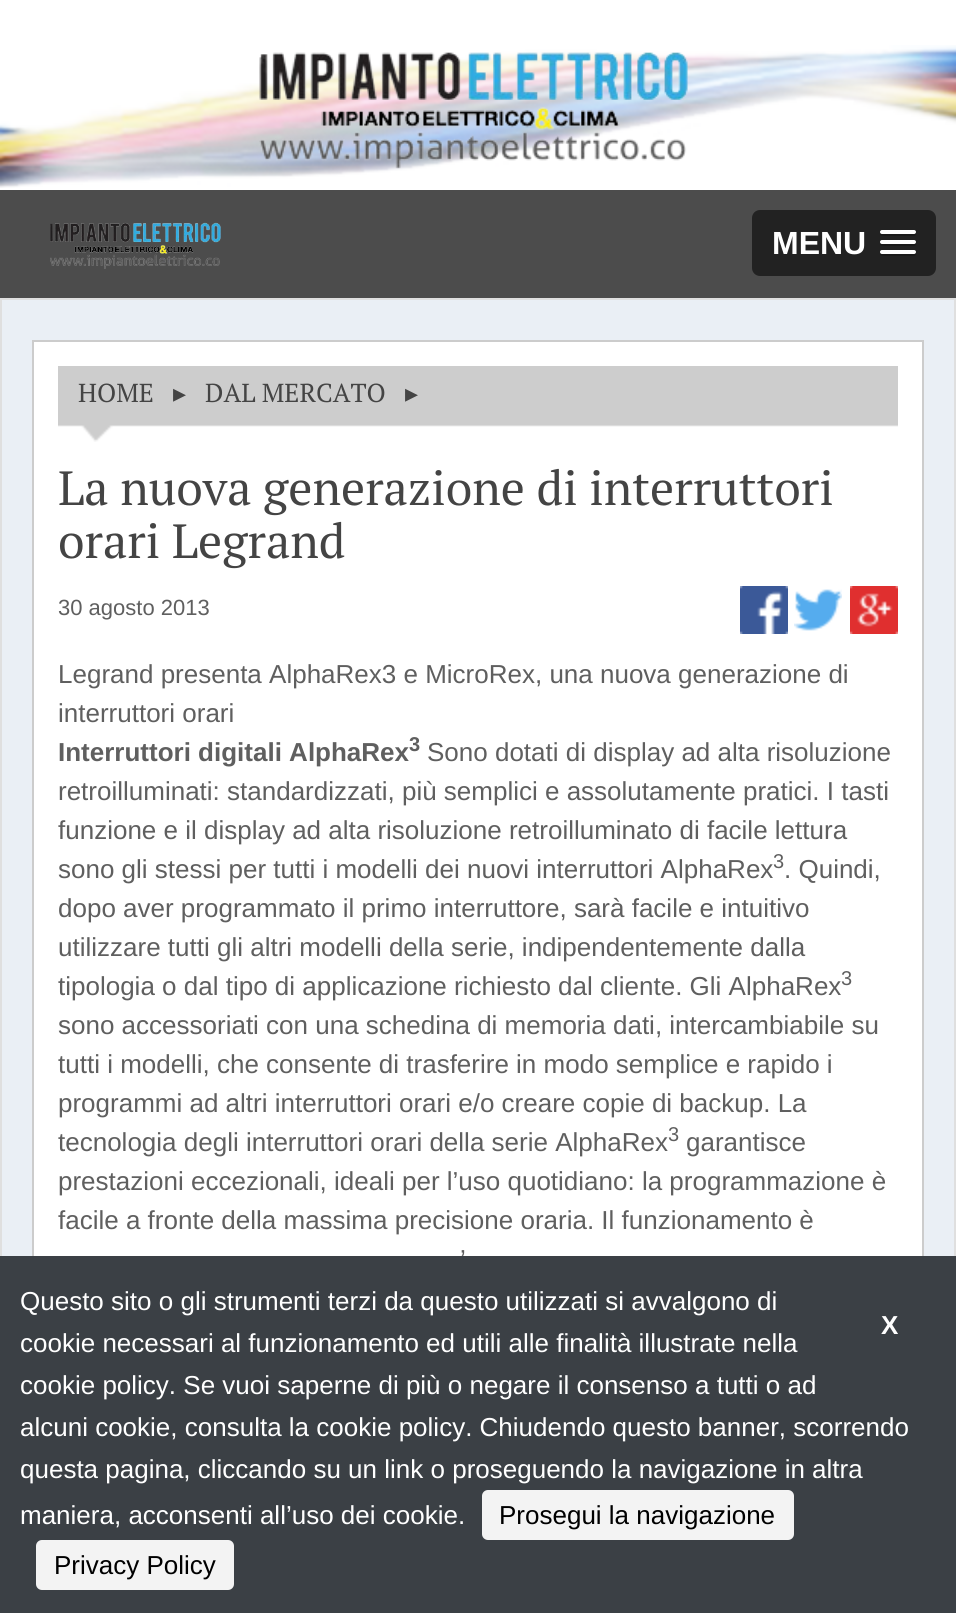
#include <cairo.h>
#include <math.h>
#include <stddef.h>

static cairo_t *ctx;

static void use_color(int r, int g, int b) {
    cairo_set_source_rgb(ctx, r / 255.0, g / 255.0, b / 255.0);
}

static void round_rect(double x, double y, double w, double h, double r) {
    cairo_new_sub_path(ctx);
    cairo_arc(ctx, x + w - r, y + h - r, r, 0, M_PI / 2);
    cairo_arc(ctx, x + r, y + h - r, r, M_PI / 2, M_PI);
    cairo_arc(ctx, x + r, y + r, r, M_PI, 1.5 * M_PI);
    cairo_arc(ctx, x + w - r, y + r, r, 1.5 * M_PI, 2 * M_PI);
    cairo_close_path(ctx);
}

static void picture(const char *path, double x, double y, double w, double h) {
    cairo_surface_t *image = cairo_image_surface_create_from_png(path);
    cairo_save(ctx);
    cairo_set_source_surface(ctx, image, x, y);
    cairo_rectangle(ctx, x, y, w, h);
    cairo_fill(ctx);
    cairo_restore(ctx);
    cairo_surface_destroy(image);
}

int main(void) {
    cairo_surface_t *surface = cairo_image_surface_create(CAIRO_FORMAT_RGB24, 956, 1613);
    ctx = cairo_create(surface);
    cairo_font_options_t *options = cairo_font_options_create();
    cairo_font_options_set_hint_metrics(options, CAIRO_HINT_METRICS_OFF);
    cairo_font_options_set_hint_style(options, CAIRO_HINT_STYLE_NONE);
    cairo_set_font_options(ctx, options);
    cairo_set_miter_limit(ctx, 4);
    use_color(255, 255, 255);
    cairo_paint(ctx);
    picture("img1.png", 0, 45, 956, 143);
    picture("img2.png", 259, 52, 429, 117);
    use_color(76, 76, 76);
    cairo_rectangle(ctx, 0, 190, 956, 108);
    cairo_fill(ctx);
    picture("img3.png", 50, 222, 171, 47);
    use_color(34, 34, 34);
    round_rect(752, 210, 184, 66, 8);
    cairo_fill(ctx);
    cairo_select_font_face(ctx, "Liberation Sans", CAIRO_FONT_SLANT_NORMAL, CAIRO_FONT_WEIGHT_BOLD);
    cairo_set_font_size(ctx, 32);
    use_color(255, 255, 255);
    cairo_move_to(ctx, 772, 254);
    cairo_show_text(ctx, "MENU");
    use_color(26, 26, 26);
    cairo_new_path(ctx);
    cairo_move_to(ctx, 880.5, 233);
    cairo_curve_to(ctx, 878, 237, 887, 236, 887.5, 236);
    cairo_line_to(ctx, 908.5, 236);
    cairo_curve_to(ctx, 909, 236, 918, 237, 915.5, 233);
    cairo_curve_to(ctx, 915.5, 233.5, 914.5, 234, 914, 234);
    cairo_line_to(ctx, 882, 234);
    cairo_curve_to(ctx, 881.5, 234, 880.5, 233.5, 880.5, 233);
    cairo_close_path(ctx);
    cairo_fill(ctx);
    use_color(255, 255, 255);
    round_rect(880, 230, 36, 4, 2);
    cairo_fill(ctx);
    use_color(26, 26, 26);
    cairo_new_path(ctx);
    cairo_move_to(ctx, 880.5, 243);
    cairo_curve_to(ctx, 878, 247, 887, 246, 887.5, 246);
    cairo_line_to(ctx, 908.5, 246);
    cairo_curve_to(ctx, 909, 246, 918, 247, 915.5, 243);
    cairo_curve_to(ctx, 915.5, 243.5, 914.5, 244, 914, 244);
    cairo_line_to(ctx, 882, 244);
    cairo_curve_to(ctx, 881.5, 244, 880.5, 243.5, 880.5, 243);
    cairo_close_path(ctx);
    cairo_fill(ctx);
    use_color(255, 255, 255);
    round_rect(880, 240, 36, 4, 2);
    cairo_fill(ctx);
    use_color(26, 26, 26);
    cairo_new_path(ctx);
    cairo_move_to(ctx, 880.5, 253);
    cairo_curve_to(ctx, 878, 257, 887, 256, 887.5, 256);
    cairo_line_to(ctx, 908.5, 256);
    cairo_curve_to(ctx, 909, 256, 918, 257, 915.5, 253);
    cairo_curve_to(ctx, 915.5, 253.5, 914.5, 254, 914, 254);
    cairo_line_to(ctx, 882, 254);
    cairo_curve_to(ctx, 881.5, 254, 880.5, 253.5, 880.5, 253);
    cairo_close_path(ctx);
    cairo_fill(ctx);
    use_color(255, 255, 255);
    round_rect(880, 250, 36, 4, 2);
    cairo_fill(ctx);
    use_color(234, 239, 245);
    cairo_rectangle(ctx, 2, 300, 952, 956);
    cairo_fill(ctx);
    cairo_rectangle(ctx, 1, 299, 954, 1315);
    use_color(223, 223, 223);
    cairo_stroke(ctx);
    use_color(255, 255, 255);
    cairo_rectangle(ctx, 34, 342, 888, 914);
    cairo_fill(ctx);
    cairo_rectangle(ctx, 33, 341, 890, 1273);
    use_color(204, 204, 204);
    cairo_stroke(ctx);
    use_color(205, 205, 205);
    cairo_rectangle(ctx, 58, 366, 840, 76);
    cairo_fill(ctx);
    picture("img4.png", 58, 425, 840, 17);
    cairo_select_font_face(ctx, "PT Serif", CAIRO_FONT_SLANT_NORMAL, CAIRO_FONT_WEIGHT_NORMAL);
    cairo_set_font_size(ctx, 26);
    use_color(68, 68, 68);
    cairo_move_to(ctx, 78, 402);
    cairo_show_text(ctx, "HOME");
    cairo_select_font_face(ctx, "DejaVu Sans", CAIRO_FONT_SLANT_NORMAL, CAIRO_FONT_WEIGHT_NORMAL);
    cairo_move_to(ctx, 173, 402);
    cairo_show_text(ctx, "▸");
    cairo_select_font_face(ctx, "PT Serif", CAIRO_FONT_SLANT_NORMAL, CAIRO_FONT_WEIGHT_NORMAL);
    cairo_move_to(ctx, 205, 402);
    cairo_show_text(ctx, "DAL MERCATO");
    cairo_select_font_face(ctx, "DejaVu Sans", CAIRO_FONT_SLANT_NORMAL, CAIRO_FONT_WEIGHT_NORMAL);
    cairo_move_to(ctx, 405, 402);
    cairo_show_text(ctx, "▸");
    cairo_select_font_face(ctx, "PT Serif", CAIRO_FONT_SLANT_NORMAL, CAIRO_FONT_WEIGHT_NORMAL);
    cairo_set_font_size(ctx, 48);
    cairo_move_to(ctx, 58, 505);
    cairo_show_text(ctx, "La nuova generazione di interruttori");
    cairo_move_to(ctx, 58, 558);
    cairo_show_text(ctx, "orari Legrand");
    cairo_select_font_face(ctx, "Liberation Sans", CAIRO_FONT_SLANT_NORMAL, CAIRO_FONT_WEIGHT_NORMAL);
    cairo_set_font_size(ctx, 22);
    use_color(95, 95, 95);
    cairo_move_to(ctx, 58, 615);
    cairo_show_text(ctx, "30 agosto 2013");
    picture("img5.png", 740, 586, 48, 48);
    picture("img6.png", 794, 589, 48, 42);
    picture("img7.png", 850, 586, 48, 48);
    cairo_set_font_size(ctx, 26);
    cairo_move_to(ctx, 58, 683);
    cairo_show_text(ctx, "Legrand presenta AlphaRex3 e MicroRex, una nuova generazione di");
    cairo_move_to(ctx, 58, 722);
    cairo_show_text(ctx, "interruttori orari");
    cairo_select_font_face(ctx, "Liberation Sans", CAIRO_FONT_SLANT_NORMAL, CAIRO_FONT_WEIGHT_BOLD);
    cairo_move_to(ctx, 58, 761);
    cairo_show_text(ctx, "Interruttori digitali AlphaRex");
    cairo_set_font_size(ctx, 20);
    cairo_move_to(ctx, 409, 751);
    cairo_show_text(ctx, "3");
    cairo_select_font_face(ctx, "Liberation Sans", CAIRO_FONT_SLANT_NORMAL, CAIRO_FONT_WEIGHT_NORMAL);
    cairo_set_font_size(ctx, 26);
    cairo_move_to(ctx, 427, 761);
    cairo_show_text(ctx, "Sono dotati di display ad alta risoluzione");
    cairo_move_to(ctx, 58, 800);
    cairo_show_text(ctx, "retroilluminati: standardizzati, più semplici e assolutamente pratici. I tasti");
    cairo_move_to(ctx, 58, 839);
    cairo_show_text(ctx, "funzione e il display ad alta risoluzione retroilluminato di facile lettura");
    cairo_move_to(ctx, 58, 878);
    cairo_show_text(ctx, "sono gli stessi per tutti i modelli dei nuovi interruttori AlphaRex");
    cairo_set_font_size(ctx, 20);
    cairo_move_to(ctx, 773, 868);
    cairo_show_text(ctx, "3");
    cairo_set_font_size(ctx, 26);
    cairo_move_to(ctx, 784, 878);
    cairo_show_text(ctx, ". Quindi,");
    cairo_move_to(ctx, 58, 917);
    cairo_show_text(ctx, "dopo aver programmato il primo interruttore, sarà facile e intuitivo");
    cairo_move_to(ctx, 58, 956);
    cairo_show_text(ctx, "utilizzare tutti gli altri modelli della serie, indipendentemente dalla");
    cairo_move_to(ctx, 58, 995);
    cairo_show_text(ctx, "tipologia o dal tipo di applicazione richiesto dal cliente. Gli AlphaRex");
    cairo_set_font_size(ctx, 20);
    cairo_move_to(ctx, 841, 985);
    cairo_show_text(ctx, "3");
    cairo_set_font_size(ctx, 26);
    cairo_move_to(ctx, 58, 1034);
    cairo_show_text(ctx, "sono accessoriati con una schedina di memoria dati, intercambiabile su");
    cairo_move_to(ctx, 58, 1073);
    cairo_show_text(ctx, "tutti i modelli, che consente di trasferire in modo semplice e rapido i");
    cairo_move_to(ctx, 58, 1112);
    cairo_show_text(ctx, "programmi ad altri interruttori orari e/o creare copie di backup. La");
    cairo_move_to(ctx, 58, 1151);
    cairo_show_text(ctx, "tecnologia degli interruttori orari della serie AlphaRex");
    cairo_set_font_size(ctx, 20);
    cairo_move_to(ctx, 668, 1141);
    cairo_show_text(ctx, "3");
    cairo_set_font_size(ctx, 26);
    cairo_move_to(ctx, 686, 1151);
    cairo_show_text(ctx, "garantisce");
    cairo_move_to(ctx, 58, 1190);
    cairo_show_text(ctx, "prestazioni eccezionali, ideali per l’uso quotidiano: la programmazione è");
    cairo_move_to(ctx, 58, 1229);
    cairo_show_text(ctx, "facile a fronte della massima precisione oraria. Il funzionamento è");
    cairo_move_to(ctx, 460, 1268);
    cairo_show_text(ctx, "’");
    use_color(59, 64, 69);
    cairo_rectangle(ctx, 0, 1256, 956, 357);
    cairo_fill(ctx);
    use_color(255, 255, 255);
    cairo_move_to(ctx, 20, 1310);
    cairo_show_text(ctx, "Questo sito o gli strumenti terzi da questo utilizzati si avvalgono di");
    cairo_select_font_face(ctx, "Liberation Sans", CAIRO_FONT_SLANT_NORMAL, CAIRO_FONT_WEIGHT_BOLD);
    cairo_move_to(ctx, 881, 1334);
    cairo_show_text(ctx, "X");
    cairo_select_font_face(ctx, "Liberation Sans", CAIRO_FONT_SLANT_NORMAL, CAIRO_FONT_WEIGHT_NORMAL);
    cairo_move_to(ctx, 20, 1352);
    cairo_show_text(ctx, "cookie necessari al funzionamento ed utili alle finalità illustrate nella");
    cairo_move_to(ctx, 20, 1394);
    cairo_show_text(ctx, "cookie policy. Se vuoi saperne di più o negare il consenso a tutti o ad");
    cairo_move_to(ctx, 20, 1436);
    cairo_show_text(ctx, "alcuni cookie, consulta la cookie policy. Chiudendo questo banner, scorrendo");
    cairo_move_to(ctx, 20, 1478);
    cairo_show_text(ctx, "questa pagina, cliccando su un link o proseguendo la navigazione in altra");
    cairo_move_to(ctx, 20, 1524);
    cairo_show_text(ctx, "maniera, acconsenti all’uso dei cookie.");
    use_color(243, 243, 243);
    round_rect(482, 1490, 312, 50, 6);
    cairo_fill(ctx);
    use_color(0, 0, 0);
    cairo_move_to(ctx, 499, 1524);
    cairo_show_text(ctx, "Prosegui la navigazione");
    use_color(243, 243, 243);
    round_rect(36, 1540, 198, 50, 6);
    cairo_fill(ctx);
    use_color(0, 0, 0);
    cairo_move_to(ctx, 54, 1574);
    cairo_show_text(ctx, "Privacy Policy");
    cairo_surface_write_to_png(surface, "result.png");
    cairo_font_options_destroy(options);
    cairo_destroy(ctx);
    cairo_surface_destroy(surface);
    return 0;
}
